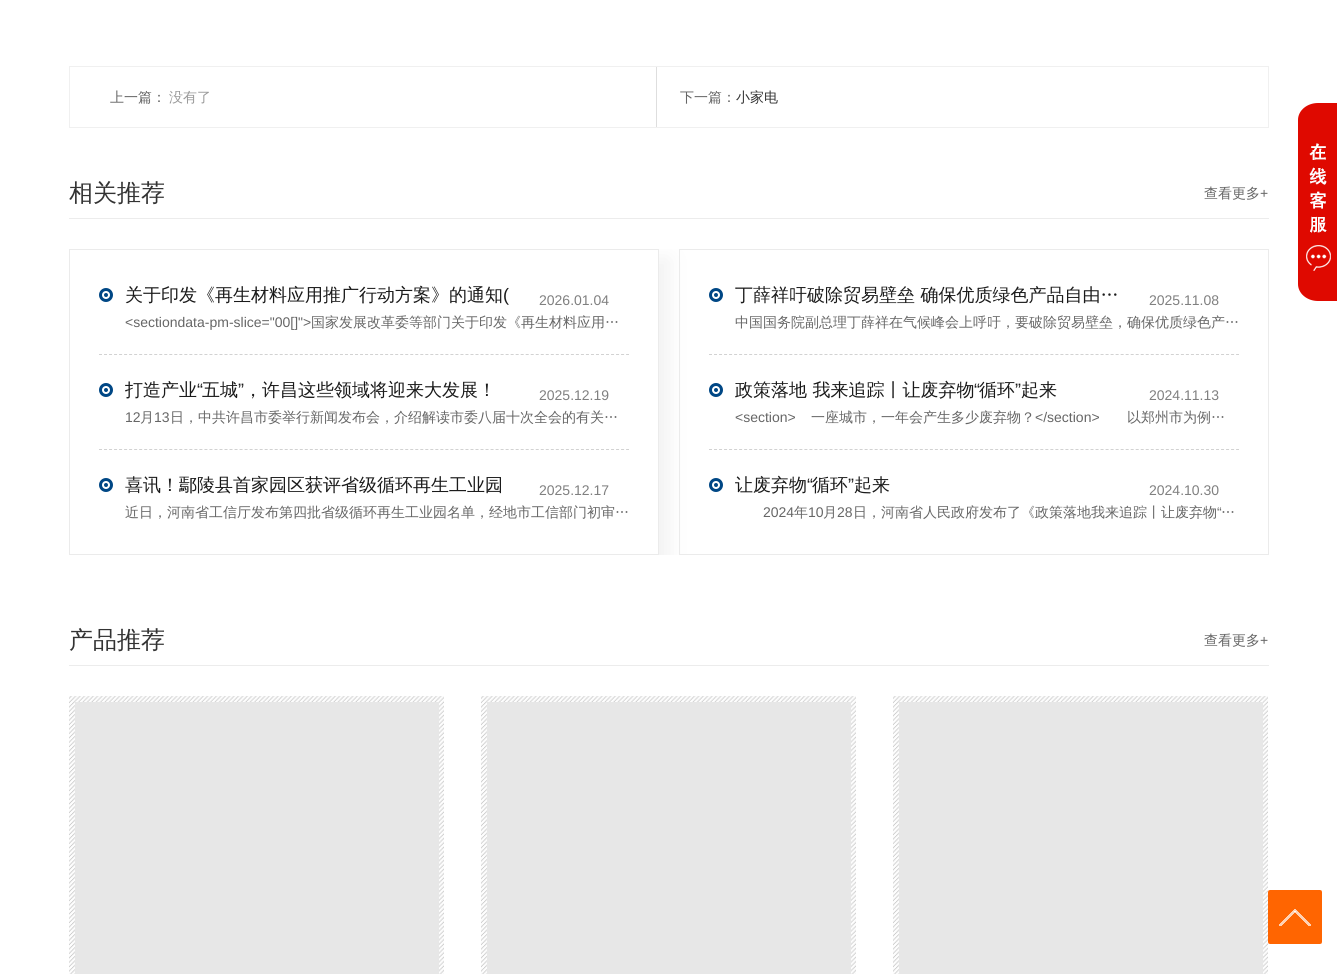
#include <cairo.h>
#include <math.h>
#include <stddef.h>

static cairo_t *ctx;

static void use_color(int r, int g, int b) {
    cairo_set_source_rgb(ctx, r / 255.0, g / 255.0, b / 255.0);
}

static void round_rect(double x, double y, double w, double h, double r) {
    cairo_new_sub_path(ctx);
    cairo_arc(ctx, x + w - r, y + h - r, r, 0, M_PI / 2);
    cairo_arc(ctx, x + r, y + h - r, r, M_PI / 2, M_PI);
    cairo_arc(ctx, x + r, y + r, r, M_PI, 1.5 * M_PI);
    cairo_arc(ctx, x + w - r, y + r, r, 1.5 * M_PI, 2 * M_PI);
    cairo_close_path(ctx);
}

static void shadow(double x, double y, double w, double h, double r, double blur, double alpha) {
    cairo_push_group_with_content(ctx, CAIRO_CONTENT_ALPHA);
    cairo_set_operator(ctx, CAIRO_OPERATOR_SOURCE);
    for (int i = 15; i >= -15 && fmin(w, h) + blur * i / 3 > 0; i -= 2) {
        double e = blur * i / 6;
        cairo_set_source_rgba(ctx, 0, 0, 0, alpha * erfc((i - 1) / 8.5) / 2);
        round_rect(x - e, y - e, w + 2 * e, h + 2 * e, fmax(0, fmin(r + e + blur * .6, fmin(w, h) / 2 + e)));
        cairo_fill(ctx);
    }
    cairo_pattern_t *soft = cairo_pop_group(ctx);
    cairo_mask(ctx, soft);
    cairo_pattern_destroy(soft);
}

static void picture(const char *path, double x, double y, double w, double h) {
    cairo_surface_t *image = cairo_image_surface_create_from_png(path);
    cairo_save(ctx);
    cairo_set_source_surface(ctx, image, x, y);
    cairo_rectangle(ctx, x, y, w, h);
    cairo_fill(ctx);
    cairo_restore(ctx);
    cairo_surface_destroy(image);
}

int main(void) {
    cairo_surface_t *surface = cairo_image_surface_create(CAIRO_FORMAT_RGB24, 1337, 974);
    ctx = cairo_create(surface);
    cairo_font_options_t *options = cairo_font_options_create();
    cairo_font_options_set_hint_metrics(options, CAIRO_HINT_METRICS_OFF);
    cairo_font_options_set_hint_style(options, CAIRO_HINT_STYLE_NONE);
    cairo_set_font_options(ctx, options);
    cairo_set_miter_limit(ctx, 4);
    use_color(255, 255, 255);
    cairo_paint(ctx);
    cairo_rectangle(ctx, 69.5, 66.5, 1199, 61);
    use_color(240, 240, 240);
    cairo_set_line_width(ctx, 1);
    cairo_stroke(ctx);
    cairo_select_font_face(ctx, "WenQuanYi Zen Hei Medium", CAIRO_FONT_SLANT_NORMAL, CAIRO_FONT_WEIGHT_NORMAL);
    cairo_set_font_size(ctx, 14);
    use_color(102, 102, 102);
    cairo_move_to(ctx, 110, 102);
    cairo_show_text(ctx, "上一篇：");
    use_color(153, 153, 153);
    cairo_move_to(ctx, 169, 102);
    cairo_show_text(ctx, "没有了");
    use_color(222, 222, 222);
    cairo_rectangle(ctx, 656, 67, 1, 60);
    cairo_fill(ctx);
    use_color(102, 102, 102);
    cairo_move_to(ctx, 680, 102);
    cairo_show_text(ctx, "下一篇：");
    use_color(51, 51, 51);
    cairo_move_to(ctx, 736, 102);
    cairo_show_text(ctx, "小家电");
    use_color(236, 236, 236);
    cairo_rectangle(ctx, 69, 218, 1200, 1);
    cairo_fill(ctx);
    cairo_set_font_size(ctx, 24);
    use_color(51, 51, 51);
    cairo_move_to(ctx, 69, 201);
    cairo_show_text(ctx, "相关推荐");
    cairo_set_font_size(ctx, 14);
    use_color(102, 102, 102);
    cairo_move_to(ctx, 1204, 198);
    cairo_show_text(ctx, "查看更多");
    cairo_select_font_face(ctx, "Liberation Sans", CAIRO_FONT_SLANT_NORMAL, CAIRO_FONT_WEIGHT_NORMAL);
    cairo_move_to(ctx, 1260, 198);
    cairo_show_text(ctx, "+");
    cairo_save(ctx);
    cairo_rectangle(ctx, 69, 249, 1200, 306);
    cairo_clip(ctx);
    cairo_rectangle(ctx, 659, 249, 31, 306);
    cairo_clip(ctx);
    use_color(242, 242, 242);
    shadow(79, 259, 590, 306, 0, 10, 1);
    cairo_restore(ctx);
    cairo_rectangle(ctx, 69.5, 249.5, 589, 305);
    use_color(235, 235, 235);
    cairo_stroke(ctx);
    cairo_new_path(ctx);
    cairo_move_to(ctx, 99, 354.5);
    cairo_line_to(ctx, 629, 354.5);
    use_color(210, 210, 210);
    cairo_set_dash(ctx, (double[]){3, 2.02}, 2, 0);
    cairo_stroke(ctx);
    cairo_arc(ctx, 106, 295, 5.5, 0, 2 * M_PI);
    use_color(0, 71, 133);
    cairo_set_line_width(ctx, 3);
    cairo_set_dash(ctx, NULL, 0, 0);
    cairo_stroke(ctx);
    cairo_select_font_face(ctx, "WenQuanYi Zen Hei Medium", CAIRO_FONT_SLANT_NORMAL, CAIRO_FONT_WEIGHT_NORMAL);
    cairo_set_font_size(ctx, 18);
    use_color(26, 26, 26);
    cairo_move_to(ctx, 125, 301);
    cairo_show_text(ctx, "关于印发《再生材料应用推广行动方案》的通知");
    cairo_select_font_face(ctx, "Liberation Sans", CAIRO_FONT_SLANT_NORMAL, CAIRO_FONT_WEIGHT_NORMAL);
    cairo_move_to(ctx, 503, 301);
    cairo_show_text(ctx, "(");
    use_color(0, 71, 133);
    cairo_new_path(ctx);
    cairo_arc(ctx, 106, 295, 2, 0, 2 * M_PI);
    cairo_fill(ctx);
    cairo_set_font_size(ctx, 14);
    use_color(128, 128, 128);
    cairo_move_to(ctx, 539, 305);
    cairo_show_text(ctx, "2026.01.04");
    use_color(102, 102, 102);
    cairo_move_to(ctx, 125, 327);
    cairo_show_text(ctx, "<sectiondata-pm-slice=\"00[]\">");
    cairo_select_font_face(ctx, "WenQuanYi Zen Hei Medium", CAIRO_FONT_SLANT_NORMAL, CAIRO_FONT_WEIGHT_NORMAL);
    cairo_move_to(ctx, 311, 327);
    cairo_show_text(ctx, "国家发展改革委等部门关于印发《再生材料应用…");
    cairo_new_path(ctx);
    cairo_move_to(ctx, 99, 449.5);
    cairo_line_to(ctx, 629, 449.5);
    use_color(210, 210, 210);
    cairo_set_line_width(ctx, 1);
    cairo_set_dash(ctx, (double[]){3, 2.02}, 2, 0);
    cairo_stroke(ctx);
    cairo_arc(ctx, 106, 390, 5.5, 0, 2 * M_PI);
    use_color(0, 71, 133);
    cairo_set_line_width(ctx, 3);
    cairo_set_dash(ctx, NULL, 0, 0);
    cairo_stroke(ctx);
    cairo_set_font_size(ctx, 18);
    use_color(26, 26, 26);
    cairo_move_to(ctx, 125, 396);
    cairo_show_text(ctx, "打造产业");
    cairo_select_font_face(ctx, "Liberation Sans", CAIRO_FONT_SLANT_NORMAL, CAIRO_FONT_WEIGHT_NORMAL);
    cairo_move_to(ctx, 197, 396);
    cairo_show_text(ctx, "“");
    cairo_select_font_face(ctx, "WenQuanYi Zen Hei Medium", CAIRO_FONT_SLANT_NORMAL, CAIRO_FONT_WEIGHT_NORMAL);
    cairo_move_to(ctx, 202, 396);
    cairo_show_text(ctx, "五城");
    cairo_select_font_face(ctx, "Liberation Sans", CAIRO_FONT_SLANT_NORMAL, CAIRO_FONT_WEIGHT_NORMAL);
    cairo_move_to(ctx, 238, 396);
    cairo_show_text(ctx, "”");
    cairo_select_font_face(ctx, "WenQuanYi Zen Hei Medium", CAIRO_FONT_SLANT_NORMAL, CAIRO_FONT_WEIGHT_NORMAL);
    cairo_move_to(ctx, 244, 396);
    cairo_show_text(ctx, "，许昌这些领域将迎来大发展！");
    use_color(0, 71, 133);
    cairo_new_path(ctx);
    cairo_arc(ctx, 106, 390, 2, 0, 2 * M_PI);
    cairo_fill(ctx);
    cairo_select_font_face(ctx, "Liberation Sans", CAIRO_FONT_SLANT_NORMAL, CAIRO_FONT_WEIGHT_NORMAL);
    cairo_set_font_size(ctx, 14);
    use_color(128, 128, 128);
    cairo_move_to(ctx, 539, 400);
    cairo_show_text(ctx, "2025.12.19");
    use_color(102, 102, 102);
    cairo_move_to(ctx, 125, 422);
    cairo_show_text(ctx, "12");
    cairo_select_font_face(ctx, "WenQuanYi Zen Hei Medium", CAIRO_FONT_SLANT_NORMAL, CAIRO_FONT_WEIGHT_NORMAL);
    cairo_move_to(ctx, 140, 422);
    cairo_show_text(ctx, "月");
    cairo_select_font_face(ctx, "Liberation Sans", CAIRO_FONT_SLANT_NORMAL, CAIRO_FONT_WEIGHT_NORMAL);
    cairo_move_to(ctx, 154, 422);
    cairo_show_text(ctx, "13");
    cairo_select_font_face(ctx, "WenQuanYi Zen Hei Medium", CAIRO_FONT_SLANT_NORMAL, CAIRO_FONT_WEIGHT_NORMAL);
    cairo_move_to(ctx, 170, 422);
    cairo_show_text(ctx, "日，中共许昌市委举行新闻发布会，介绍解读市委八届十次全会的有关…");
    cairo_new_path(ctx);
    cairo_arc(ctx, 106, 485, 5.5, 0, 2 * M_PI);
    use_color(0, 71, 133);
    cairo_stroke(ctx);
    cairo_set_font_size(ctx, 18);
    use_color(26, 26, 26);
    cairo_move_to(ctx, 125, 491);
    cairo_show_text(ctx, "喜讯！鄢陵县首家园区获评省级循环再生工业园");
    use_color(0, 71, 133);
    cairo_new_path(ctx);
    cairo_arc(ctx, 106, 485, 2, 0, 2 * M_PI);
    cairo_fill(ctx);
    cairo_select_font_face(ctx, "Liberation Sans", CAIRO_FONT_SLANT_NORMAL, CAIRO_FONT_WEIGHT_NORMAL);
    cairo_set_font_size(ctx, 14);
    use_color(128, 128, 128);
    cairo_move_to(ctx, 539, 495);
    cairo_show_text(ctx, "2025.12.17");
    cairo_select_font_face(ctx, "WenQuanYi Zen Hei Medium", CAIRO_FONT_SLANT_NORMAL, CAIRO_FONT_WEIGHT_NORMAL);
    use_color(102, 102, 102);
    cairo_move_to(ctx, 125, 517);
    cairo_show_text(ctx, "近日，河南省工信厅发布第四批省级循环再生工业园名单，经地市工信部门初审…");
    cairo_rectangle(ctx, 679.5, 249.5, 589, 305);
    use_color(235, 235, 235);
    cairo_set_line_width(ctx, 1);
    cairo_stroke(ctx);
    cairo_new_path(ctx);
    cairo_move_to(ctx, 709, 354.5);
    cairo_line_to(ctx, 1239, 354.5);
    use_color(210, 210, 210);
    cairo_set_dash(ctx, (double[]){3, 2.02}, 2, 0);
    cairo_stroke(ctx);
    cairo_arc(ctx, 716, 295, 5.5, 0, 2 * M_PI);
    use_color(0, 71, 133);
    cairo_set_line_width(ctx, 3);
    cairo_set_dash(ctx, NULL, 0, 0);
    cairo_stroke(ctx);
    cairo_set_font_size(ctx, 18);
    use_color(26, 26, 26);
    cairo_move_to(ctx, 735, 301);
    cairo_show_text(ctx, "丁薛祥吁破除贸易壁垒 确保优质绿色产品自由…");
    use_color(0, 71, 133);
    cairo_new_path(ctx);
    cairo_arc(ctx, 716, 295, 2, 0, 2 * M_PI);
    cairo_fill(ctx);
    cairo_select_font_face(ctx, "Liberation Sans", CAIRO_FONT_SLANT_NORMAL, CAIRO_FONT_WEIGHT_NORMAL);
    cairo_set_font_size(ctx, 14);
    use_color(128, 128, 128);
    cairo_move_to(ctx, 1149, 305);
    cairo_show_text(ctx, "2025.11.08");
    cairo_select_font_face(ctx, "WenQuanYi Zen Hei Medium", CAIRO_FONT_SLANT_NORMAL, CAIRO_FONT_WEIGHT_NORMAL);
    use_color(102, 102, 102);
    cairo_move_to(ctx, 735, 327);
    cairo_show_text(ctx, "中国国务院副总理丁薛祥在气候峰会上呼吁，要破除贸易壁垒，确保优质绿色产…");
    cairo_new_path(ctx);
    cairo_move_to(ctx, 709, 449.5);
    cairo_line_to(ctx, 1239, 449.5);
    use_color(210, 210, 210);
    cairo_set_line_width(ctx, 1);
    cairo_set_dash(ctx, (double[]){3, 2.02}, 2, 0);
    cairo_stroke(ctx);
    cairo_arc(ctx, 716, 390, 5.5, 0, 2 * M_PI);
    use_color(0, 71, 133);
    cairo_set_line_width(ctx, 3);
    cairo_set_dash(ctx, NULL, 0, 0);
    cairo_stroke(ctx);
    cairo_set_font_size(ctx, 18);
    use_color(26, 26, 26);
    cairo_move_to(ctx, 735, 396);
    cairo_show_text(ctx, "政策落地 我来追踪丨让废弃物");
    cairo_select_font_face(ctx, "Liberation Sans", CAIRO_FONT_SLANT_NORMAL, CAIRO_FONT_WEIGHT_NORMAL);
    cairo_move_to(ctx, 974, 396);
    cairo_show_text(ctx, "“");
    cairo_select_font_face(ctx, "WenQuanYi Zen Hei Medium", CAIRO_FONT_SLANT_NORMAL, CAIRO_FONT_WEIGHT_NORMAL);
    cairo_move_to(ctx, 979, 396);
    cairo_show_text(ctx, "循环");
    cairo_select_font_face(ctx, "Liberation Sans", CAIRO_FONT_SLANT_NORMAL, CAIRO_FONT_WEIGHT_NORMAL);
    cairo_move_to(ctx, 1015, 396);
    cairo_show_text(ctx, "”");
    cairo_select_font_face(ctx, "WenQuanYi Zen Hei Medium", CAIRO_FONT_SLANT_NORMAL, CAIRO_FONT_WEIGHT_NORMAL);
    cairo_move_to(ctx, 1021, 396);
    cairo_show_text(ctx, "起来");
    use_color(0, 71, 133);
    cairo_new_path(ctx);
    cairo_arc(ctx, 716, 390, 2, 0, 2 * M_PI);
    cairo_fill(ctx);
    cairo_select_font_face(ctx, "Liberation Sans", CAIRO_FONT_SLANT_NORMAL, CAIRO_FONT_WEIGHT_NORMAL);
    cairo_set_font_size(ctx, 14);
    use_color(128, 128, 128);
    cairo_move_to(ctx, 1149, 400);
    cairo_show_text(ctx, "2024.11.13");
    use_color(102, 102, 102);
    cairo_move_to(ctx, 735, 422);
    cairo_show_text(ctx, "<section>");
    cairo_select_font_face(ctx, "WenQuanYi Zen Hei Medium", CAIRO_FONT_SLANT_NORMAL, CAIRO_FONT_WEIGHT_NORMAL);
    cairo_move_to(ctx, 811, 422);
    cairo_show_text(ctx, "一座城市，一年会产生多少废弃物？");
    cairo_select_font_face(ctx, "Liberation Sans", CAIRO_FONT_SLANT_NORMAL, CAIRO_FONT_WEIGHT_NORMAL);
    cairo_move_to(ctx, 1035, 422);
    cairo_show_text(ctx, "</section>");
    cairo_select_font_face(ctx, "WenQuanYi Zen Hei Medium", CAIRO_FONT_SLANT_NORMAL, CAIRO_FONT_WEIGHT_NORMAL);
    cairo_move_to(ctx, 1127, 422);
    cairo_show_text(ctx, "以郑州市为例…");
    cairo_new_path(ctx);
    cairo_arc(ctx, 716, 485, 5.5, 0, 2 * M_PI);
    use_color(0, 71, 133);
    cairo_stroke(ctx);
    cairo_set_font_size(ctx, 18);
    use_color(26, 26, 26);
    cairo_move_to(ctx, 735, 491);
    cairo_show_text(ctx, "让废弃物");
    cairo_select_font_face(ctx, "Liberation Sans", CAIRO_FONT_SLANT_NORMAL, CAIRO_FONT_WEIGHT_NORMAL);
    cairo_move_to(ctx, 807, 491);
    cairo_show_text(ctx, "“");
    cairo_select_font_face(ctx, "WenQuanYi Zen Hei Medium", CAIRO_FONT_SLANT_NORMAL, CAIRO_FONT_WEIGHT_NORMAL);
    cairo_move_to(ctx, 812, 491);
    cairo_show_text(ctx, "循环");
    cairo_select_font_face(ctx, "Liberation Sans", CAIRO_FONT_SLANT_NORMAL, CAIRO_FONT_WEIGHT_NORMAL);
    cairo_move_to(ctx, 848, 491);
    cairo_show_text(ctx, "”");
    cairo_select_font_face(ctx, "WenQuanYi Zen Hei Medium", CAIRO_FONT_SLANT_NORMAL, CAIRO_FONT_WEIGHT_NORMAL);
    cairo_move_to(ctx, 854, 491);
    cairo_show_text(ctx, "起来");
    use_color(0, 71, 133);
    cairo_new_path(ctx);
    cairo_arc(ctx, 716, 485, 2, 0, 2 * M_PI);
    cairo_fill(ctx);
    cairo_select_font_face(ctx, "Liberation Sans", CAIRO_FONT_SLANT_NORMAL, CAIRO_FONT_WEIGHT_NORMAL);
    cairo_set_font_size(ctx, 14);
    use_color(128, 128, 128);
    cairo_move_to(ctx, 1149, 495);
    cairo_show_text(ctx, "2024.10.30");
    use_color(102, 102, 102);
    cairo_move_to(ctx, 763, 517);
    cairo_show_text(ctx, "2024");
    cairo_select_font_face(ctx, "WenQuanYi Zen Hei Medium", CAIRO_FONT_SLANT_NORMAL, CAIRO_FONT_WEIGHT_NORMAL);
    cairo_move_to(ctx, 794, 517);
    cairo_show_text(ctx, "年");
    cairo_select_font_face(ctx, "Liberation Sans", CAIRO_FONT_SLANT_NORMAL, CAIRO_FONT_WEIGHT_NORMAL);
    cairo_move_to(ctx, 808, 517);
    cairo_show_text(ctx, "10");
    cairo_select_font_face(ctx, "WenQuanYi Zen Hei Medium", CAIRO_FONT_SLANT_NORMAL, CAIRO_FONT_WEIGHT_NORMAL);
    cairo_move_to(ctx, 823, 517);
    cairo_show_text(ctx, "月");
    cairo_select_font_face(ctx, "Liberation Sans", CAIRO_FONT_SLANT_NORMAL, CAIRO_FONT_WEIGHT_NORMAL);
    cairo_move_to(ctx, 837, 517);
    cairo_show_text(ctx, "28");
    cairo_select_font_face(ctx, "WenQuanYi Zen Hei Medium", CAIRO_FONT_SLANT_NORMAL, CAIRO_FONT_WEIGHT_NORMAL);
    cairo_move_to(ctx, 853, 517);
    cairo_show_text(ctx, "日，河南省人民政府发布了《政策落地我来追踪丨让废弃物");
    cairo_select_font_face(ctx, "Liberation Sans", CAIRO_FONT_SLANT_NORMAL, CAIRO_FONT_WEIGHT_NORMAL);
    cairo_move_to(ctx, 1217, 517);
    cairo_show_text(ctx, "“");
    cairo_select_font_face(ctx, "WenQuanYi Zen Hei Medium", CAIRO_FONT_SLANT_NORMAL, CAIRO_FONT_WEIGHT_NORMAL);
    cairo_move_to(ctx, 1221, 517);
    cairo_show_text(ctx, "…");
    picture("img1.png", 1298, 103, 39, 198);
    use_color(236, 236, 236);
    cairo_rectangle(ctx, 69, 665, 1200, 1);
    cairo_fill(ctx);
    cairo_set_font_size(ctx, 24);
    use_color(51, 51, 51);
    cairo_move_to(ctx, 69, 648);
    cairo_show_text(ctx, "产品推荐");
    cairo_set_font_size(ctx, 14);
    use_color(102, 102, 102);
    cairo_move_to(ctx, 1204, 645);
    cairo_show_text(ctx, "查看更多");
    cairo_select_font_face(ctx, "Liberation Sans", CAIRO_FONT_SLANT_NORMAL, CAIRO_FONT_WEIGHT_NORMAL);
    cairo_move_to(ctx, 1260, 645);
    cairo_show_text(ctx, "+");
    picture("img2.png", 69, 696, 375, 278);
    use_color(231, 231, 231);
    cairo_rectangle(ctx, 75, 702, 364, 272);
    cairo_fill(ctx);
    picture("img2.png", 481, 696, 375, 278);
    cairo_rectangle(ctx, 487, 702, 364, 272);
    cairo_fill(ctx);
    picture("img2.png", 893, 696, 375, 278);
    cairo_rectangle(ctx, 899, 702, 364, 272);
    cairo_fill(ctx);
    picture("img3.png", 1268, 890, 54, 54);
    cairo_surface_write_to_png(surface, "result.png");
    cairo_font_options_destroy(options);
    cairo_destroy(ctx);
    cairo_surface_destroy(surface);
    return 0;
}
